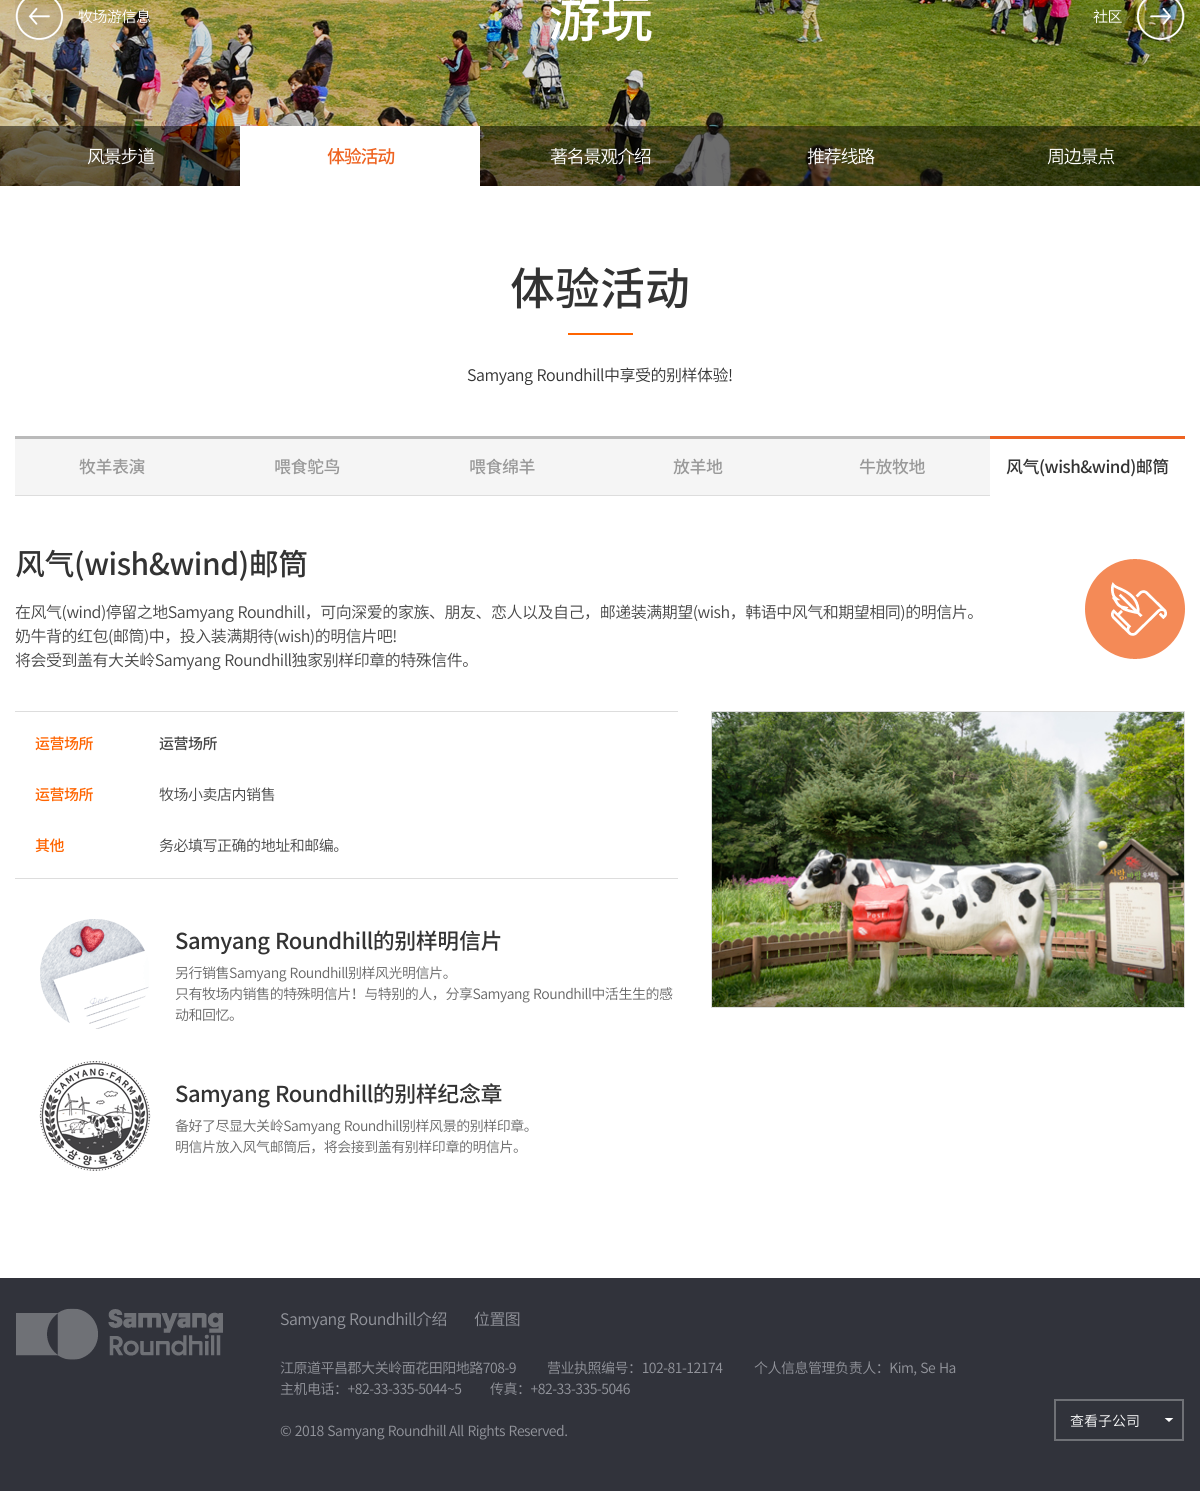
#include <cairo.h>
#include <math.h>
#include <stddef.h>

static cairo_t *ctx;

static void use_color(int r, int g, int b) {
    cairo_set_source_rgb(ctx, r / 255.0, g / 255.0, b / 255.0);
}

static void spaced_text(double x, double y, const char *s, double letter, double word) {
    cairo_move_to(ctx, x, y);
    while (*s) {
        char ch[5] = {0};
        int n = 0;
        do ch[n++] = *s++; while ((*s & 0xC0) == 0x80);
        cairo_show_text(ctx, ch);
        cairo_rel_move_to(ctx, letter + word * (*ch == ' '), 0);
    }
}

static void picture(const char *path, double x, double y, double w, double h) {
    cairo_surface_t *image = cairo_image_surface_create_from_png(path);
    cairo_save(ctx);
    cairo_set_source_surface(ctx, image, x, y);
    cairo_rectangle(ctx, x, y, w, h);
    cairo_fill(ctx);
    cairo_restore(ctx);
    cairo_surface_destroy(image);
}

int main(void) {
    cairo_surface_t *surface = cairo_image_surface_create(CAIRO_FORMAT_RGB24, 1200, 1491);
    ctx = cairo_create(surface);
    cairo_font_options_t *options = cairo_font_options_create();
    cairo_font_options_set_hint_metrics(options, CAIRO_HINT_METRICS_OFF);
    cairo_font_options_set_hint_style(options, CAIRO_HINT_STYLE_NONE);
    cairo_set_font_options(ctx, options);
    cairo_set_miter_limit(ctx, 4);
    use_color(255, 255, 255);
    cairo_paint(ctx);
    picture("img1.png", 0, 0, 1200, 186);
    cairo_select_font_face(ctx, "Noto Sans CJK SC Medium", CAIRO_FONT_SLANT_NORMAL, CAIRO_FONT_WEIGHT_NORMAL);
    cairo_set_font_size(ctx, 53);
    use_color(255, 255, 255);
    spaced_text(548, 37, "游玩", -1, 0);
    picture("img2.png", 15, 0, 48, 40);
    cairo_select_font_face(ctx, "Noto Sans CJK SC Light", CAIRO_FONT_SLANT_NORMAL, CAIRO_FONT_WEIGHT_NORMAL);
    cairo_set_font_size(ctx, 15);
    spaced_text(78, 22, "牧场游信息", -0.48, 0);
    picture("img3.png", 1137, 0, 48, 40);
    spaced_text(1093, 22, "社区", -0.48, 0);
    cairo_set_source_rgba(ctx, 0, 0, 0, 0.5);
    cairo_rectangle(ctx, 0, 126, 1200, 60);
    cairo_fill(ctx);
    cairo_set_font_size(ctx, 18);
    use_color(255, 255, 255);
    spaced_text(87, 163, "风景步道", -1.25, 0);
    cairo_rectangle(ctx, 240, 126, 240, 60);
    cairo_fill(ctx);
    cairo_select_font_face(ctx, "Noto Sans CJK SC Medium", CAIRO_FONT_SLANT_NORMAL, CAIRO_FONT_WEIGHT_NORMAL);
    use_color(238, 99, 33);
    spaced_text(327, 163, "体验活动", -1.25, 0);
    cairo_select_font_face(ctx, "Noto Sans CJK SC Light", CAIRO_FONT_SLANT_NORMAL, CAIRO_FONT_WEIGHT_NORMAL);
    use_color(255, 255, 255);
    spaced_text(550, 163, "著名景观介绍", -1.25, 0);
    spaced_text(807, 163, "推荐线路", -1.25, 0);
    spaced_text(1047, 163, "周边景点", -1.25, 0);
    cairo_select_font_face(ctx, "Noto Sans CJK SC Medium", CAIRO_FONT_SLANT_NORMAL, CAIRO_FONT_WEIGHT_NORMAL);
    cairo_set_font_size(ctx, 45);
    use_color(51, 51, 51);
    cairo_move_to(ctx, 510, 305);
    cairo_show_text(ctx, "体验活动");
    use_color(255, 100, 0);
    cairo_rectangle(ctx, 568, 333, 65, 2);
    cairo_fill(ctx);
    cairo_select_font_face(ctx, "Noto Sans CJK SC Light", CAIRO_FONT_SLANT_NORMAL, CAIRO_FONT_WEIGHT_NORMAL);
    cairo_set_font_size(ctx, 16);
    use_color(51, 51, 51);
    spaced_text(467, 381, "Samyang Roundhill中享受的别样体验!", -0.48, 1);
    use_color(245, 245, 245);
    cairo_rectangle(ctx, 15, 439, 975, 56);
    cairo_fill(ctx);
    use_color(186, 186, 186);
    cairo_rectangle(ctx, 15, 436, 975, 3);
    cairo_fill(ctx);
    use_color(221, 221, 221);
    cairo_rectangle(ctx, 15, 495, 975, 1);
    cairo_fill(ctx);
    cairo_select_font_face(ctx, "Noto Sans CJK SC Medium", CAIRO_FONT_SLANT_NORMAL, CAIRO_FONT_WEIGHT_NORMAL);
    cairo_set_font_size(ctx, 17);
    use_color(153, 153, 153);
    spaced_text(79, 473, "牧羊表演", -0.48, 0);
    spaced_text(274, 473, "喂食鸵鸟", -0.48, 0);
    spaced_text(469, 473, "喂食绵羊", -0.48, 0);
    spaced_text(673, 473, "放羊地", -0.48, 0);
    spaced_text(859, 473, "牛放牧地", -0.48, 0);
    use_color(238, 99, 33);
    cairo_rectangle(ctx, 990, 436, 195, 3);
    cairo_fill(ctx);
    use_color(51, 51, 51);
    spaced_text(1006, 473, "风气(wish&wind)邮筒", -0.48, 0);
    cairo_set_font_size(ctx, 30);
    spaced_text(15, 575, "风气(wish&wind)邮筒", -0.48, 0);
    picture("img4.png", 1085, 559, 100, 100);
    cairo_select_font_face(ctx, "Noto Sans CJK SC Light", CAIRO_FONT_SLANT_NORMAL, CAIRO_FONT_WEIGHT_NORMAL);
    cairo_set_font_size(ctx, 16);
    use_color(69, 69, 69);
    spaced_text(15, 618, "在风气(wind)停留之地Samyang Roundhill，可向深爱的家族、朋友、恋人以及自己，邮递装满期望(wish，韩语中风气和期望相同)的明信片。", -0.48, 1);
    spaced_text(15, 642, "奶牛背的红包(邮筒)中，投入装满期待(wish)的明信片吧!", -0.48, 0);
    spaced_text(15, 666, "将会受到盖有大关岭Samyang Roundhill独家别样印章的特殊信件。", -0.48, 1);
    use_color(221, 221, 221);
    cairo_rectangle(ctx, 15, 711, 663, 1);
    cairo_fill(ctx);
    cairo_rectangle(ctx, 15, 878, 663, 1);
    cairo_fill(ctx);
    cairo_select_font_face(ctx, "Noto Sans CJK SC Medium", CAIRO_FONT_SLANT_NORMAL, CAIRO_FONT_WEIGHT_NORMAL);
    cairo_set_font_size(ctx, 15);
    use_color(255, 100, 0);
    spaced_text(35, 749, "运营场所", -0.48, 0);
    use_color(69, 69, 69);
    spaced_text(159, 749, "运营场所", -0.48, 0);
    use_color(255, 100, 0);
    spaced_text(35, 800, "运营场所", -0.48, 0);
    cairo_select_font_face(ctx, "Noto Sans CJK SC Light", CAIRO_FONT_SLANT_NORMAL, CAIRO_FONT_WEIGHT_NORMAL);
    use_color(69, 69, 69);
    spaced_text(159, 800, "牧场小卖店内销售", -0.48, 0);
    cairo_select_font_face(ctx, "Noto Sans CJK SC Medium", CAIRO_FONT_SLANT_NORMAL, CAIRO_FONT_WEIGHT_NORMAL);
    use_color(255, 100, 0);
    spaced_text(35, 851, "其他", -0.48, 0);
    cairo_select_font_face(ctx, "Noto Sans CJK SC Light", CAIRO_FONT_SLANT_NORMAL, CAIRO_FONT_WEIGHT_NORMAL);
    use_color(69, 69, 69);
    spaced_text(159, 851, "务必填写正确的地址和邮编。", -0.48, 0);
    picture("img5.png", 40, 919, 109, 110);
    cairo_select_font_face(ctx, "Noto Sans CJK SC Medium", CAIRO_FONT_SLANT_NORMAL, CAIRO_FONT_WEIGHT_NORMAL);
    cairo_set_font_size(ctx, 22);
    use_color(51, 51, 51);
    spaced_text(175, 949, "Samyang Roundhill的别样明信片", -0.48, 1);
    cairo_select_font_face(ctx, "Noto Sans CJK SC Light", CAIRO_FONT_SLANT_NORMAL, CAIRO_FONT_WEIGHT_NORMAL);
    cairo_set_font_size(ctx, 14);
    use_color(102, 102, 102);
    spaced_text(175, 978, "另行销售Samyang Roundhill别样风光明信片。", -0.48, 1);
    spaced_text(175, 999, "只有牧场内销售的特殊明信片！与特别的人，分享Samyang Roundhill中活生生的感", -0.48, 1);
    spaced_text(175, 1020, "动和回忆。", -0.48, 0);
    picture("img6.png", 39, 1061, 112, 110);
    cairo_select_font_face(ctx, "Noto Sans CJK SC Medium", CAIRO_FONT_SLANT_NORMAL, CAIRO_FONT_WEIGHT_NORMAL);
    cairo_set_font_size(ctx, 22);
    use_color(51, 51, 51);
    spaced_text(175, 1102, "Samyang Roundhill的别样纪念章", -0.48, 1);
    cairo_select_font_face(ctx, "Noto Sans CJK SC Light", CAIRO_FONT_SLANT_NORMAL, CAIRO_FONT_WEIGHT_NORMAL);
    cairo_set_font_size(ctx, 14);
    use_color(102, 102, 102);
    spaced_text(175, 1131, "备好了尽显大关岭Samyang Roundhill别样风景的别样印章。", -0.48, 1);
    spaced_text(175, 1152, "明信片放入风气邮筒后，将会接到盖有别样印章的明信片。", -0.48, 0);
    cairo_rectangle(ctx, 711.5, 711.5, 473, 296);
    use_color(221, 221, 221);
    cairo_set_line_width(ctx, 1);
    cairo_stroke(ctx);
    picture("img7.png", 712, 712, 472, 295);
    use_color(49, 51, 59);
    cairo_rectangle(ctx, 0, 1278, 1200, 213);
    cairo_fill(ctx);
    picture("img8.png", 16, 1308, 207, 52);
    cairo_set_font_size(ctx, 15.9);
    use_color(147, 149, 156);
    spaced_text(280, 1325, "Samyang Roundhill介绍", -0.48, 1);
    spaced_text(474, 1325, "位置图", -0.48, 0);
    cairo_set_font_size(ctx, 14);
    spaced_text(280, 1373, "江原道平昌郡大关岭面花田阳地路708-9", -0.48, 0);
    spaced_text(547, 1373, "营业执照编号：102-81-12174", -0.48, 0);
    spaced_text(754, 1373, "个人信息管理负责人：Kim, Se Ha", -0.48, 1);
    spaced_text(280, 1394, "主机电话：+82-33-335-5044~5", -0.48, 0);
    spaced_text(490, 1394, "传真：+82-33-335-5046", -0.48, 0);
    spaced_text(280, 1436, "© 2018 Samyang Roundhill", -0.48, 1);
    spaced_text(449, 1436, "All Rights Reserved.", -0.48, 1);
    picture("img9.png", 1164, 1418, 10, 4);
    cairo_rectangle(ctx, 1055, 1400, 128, 40);
    use_color(111, 113, 118);
    cairo_set_line_width(ctx, 2);
    cairo_stroke(ctx);
    use_color(255, 255, 255);
    cairo_move_to(ctx, 1070, 1426);
    cairo_show_text(ctx, "查看子公司");
    cairo_surface_write_to_png(surface, "result.png");
    cairo_font_options_destroy(options);
    cairo_destroy(ctx);
    cairo_surface_destroy(surface);
    return 0;
}
